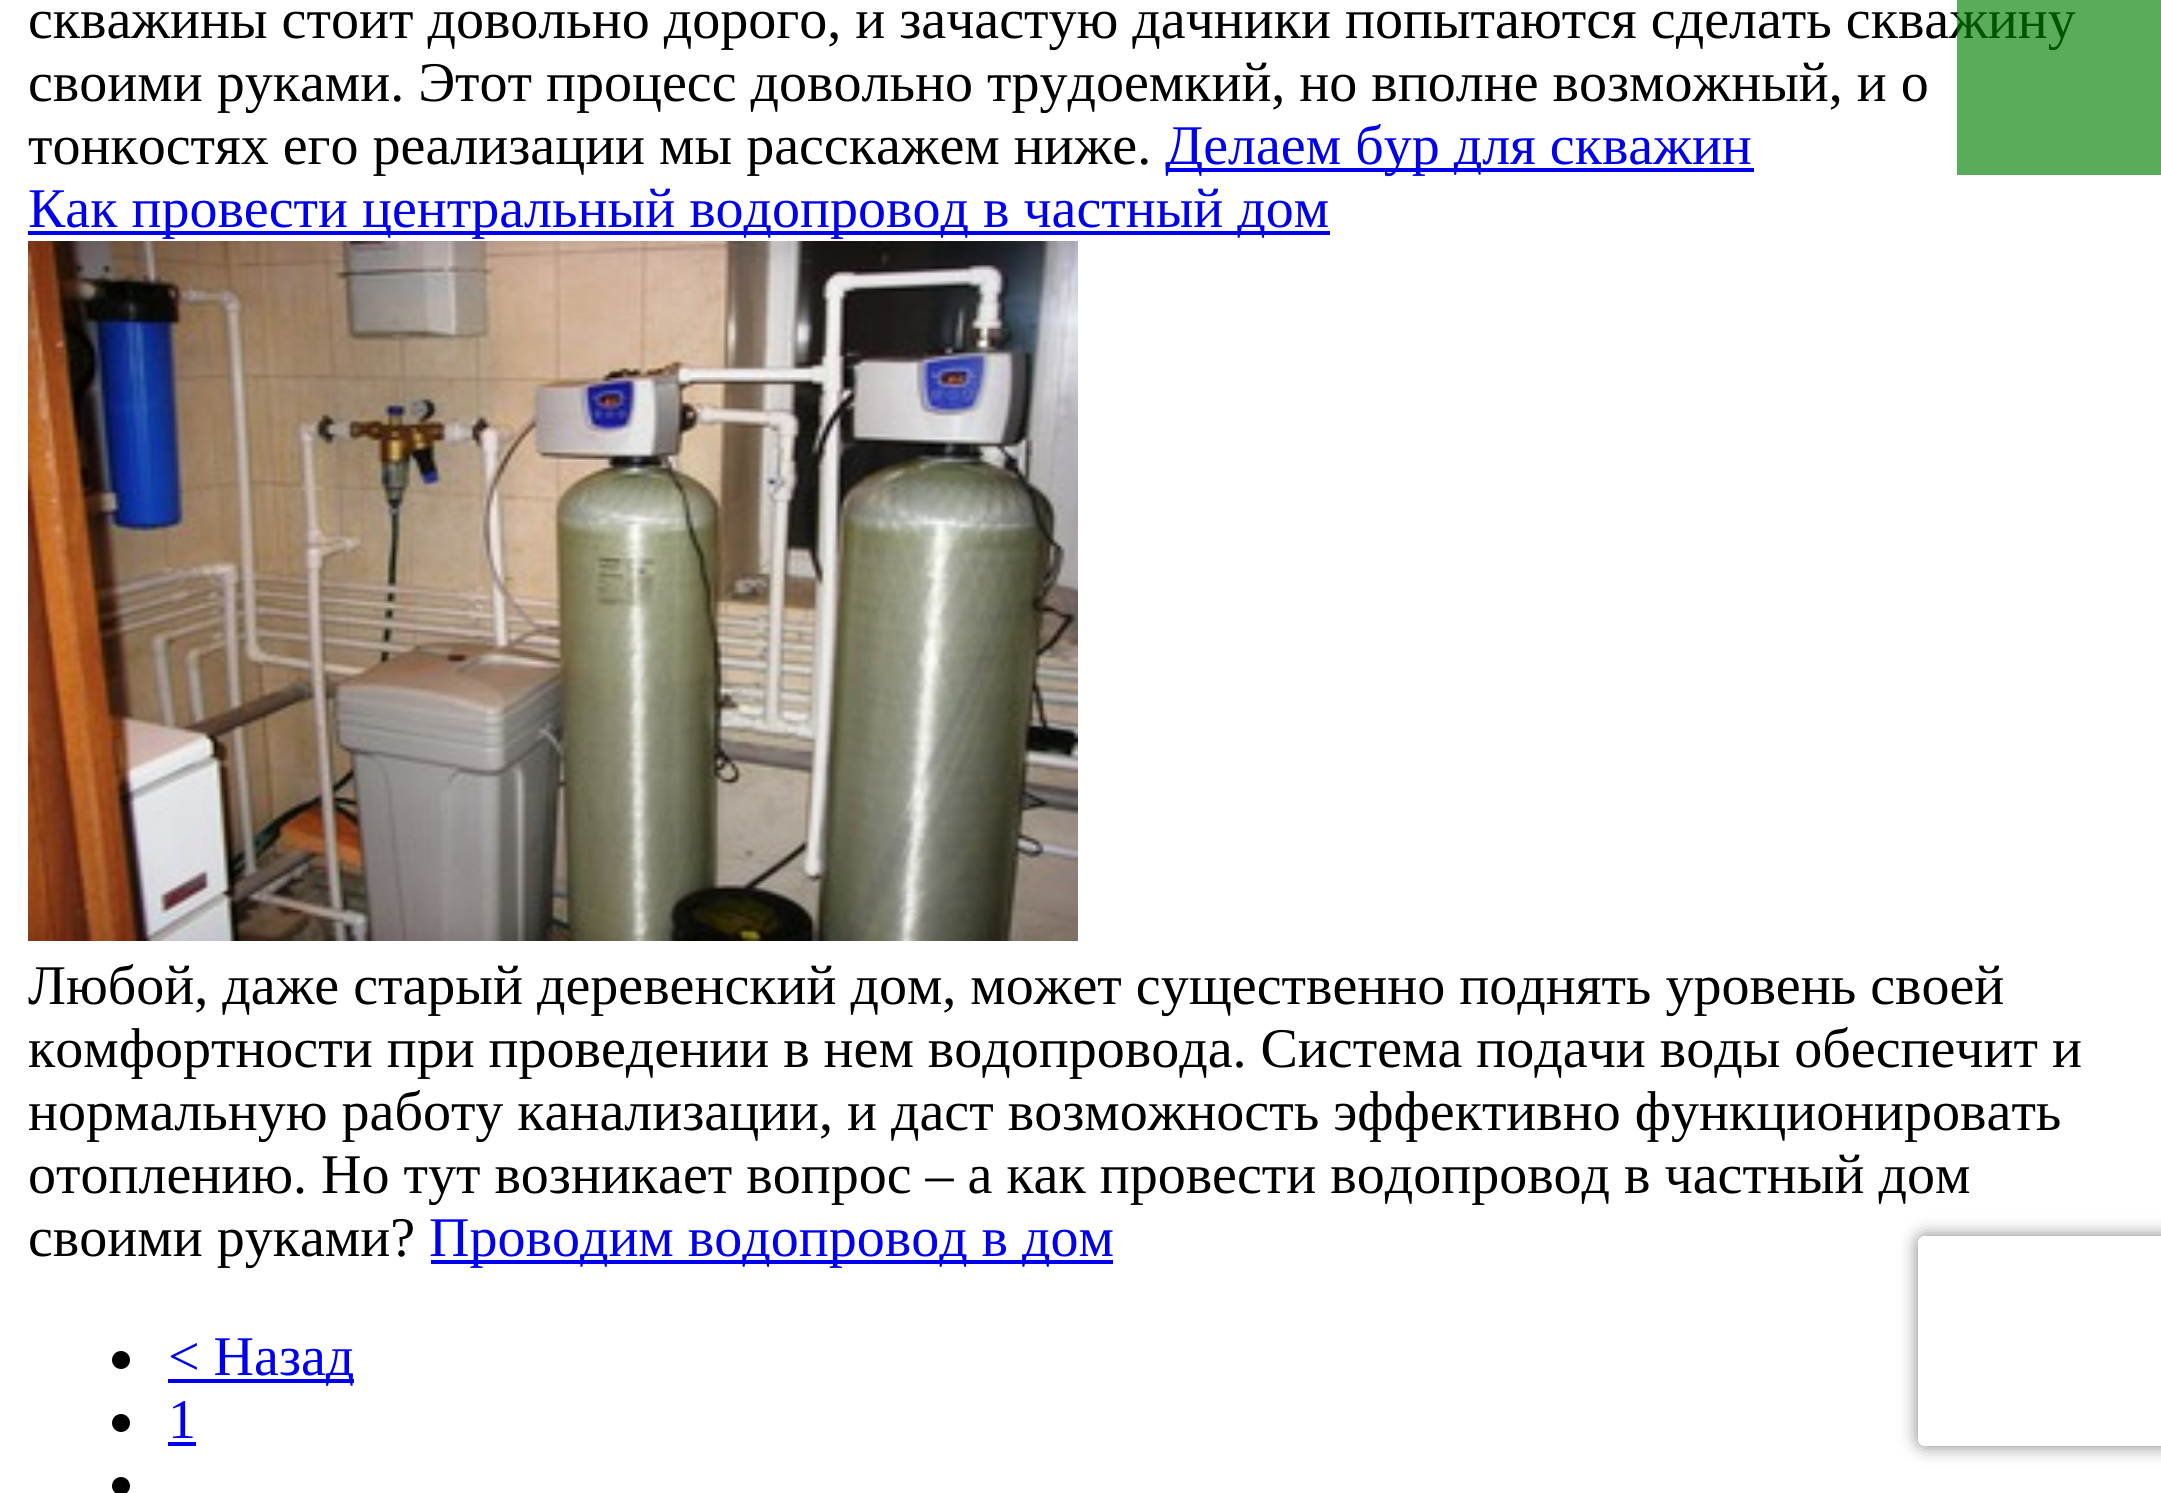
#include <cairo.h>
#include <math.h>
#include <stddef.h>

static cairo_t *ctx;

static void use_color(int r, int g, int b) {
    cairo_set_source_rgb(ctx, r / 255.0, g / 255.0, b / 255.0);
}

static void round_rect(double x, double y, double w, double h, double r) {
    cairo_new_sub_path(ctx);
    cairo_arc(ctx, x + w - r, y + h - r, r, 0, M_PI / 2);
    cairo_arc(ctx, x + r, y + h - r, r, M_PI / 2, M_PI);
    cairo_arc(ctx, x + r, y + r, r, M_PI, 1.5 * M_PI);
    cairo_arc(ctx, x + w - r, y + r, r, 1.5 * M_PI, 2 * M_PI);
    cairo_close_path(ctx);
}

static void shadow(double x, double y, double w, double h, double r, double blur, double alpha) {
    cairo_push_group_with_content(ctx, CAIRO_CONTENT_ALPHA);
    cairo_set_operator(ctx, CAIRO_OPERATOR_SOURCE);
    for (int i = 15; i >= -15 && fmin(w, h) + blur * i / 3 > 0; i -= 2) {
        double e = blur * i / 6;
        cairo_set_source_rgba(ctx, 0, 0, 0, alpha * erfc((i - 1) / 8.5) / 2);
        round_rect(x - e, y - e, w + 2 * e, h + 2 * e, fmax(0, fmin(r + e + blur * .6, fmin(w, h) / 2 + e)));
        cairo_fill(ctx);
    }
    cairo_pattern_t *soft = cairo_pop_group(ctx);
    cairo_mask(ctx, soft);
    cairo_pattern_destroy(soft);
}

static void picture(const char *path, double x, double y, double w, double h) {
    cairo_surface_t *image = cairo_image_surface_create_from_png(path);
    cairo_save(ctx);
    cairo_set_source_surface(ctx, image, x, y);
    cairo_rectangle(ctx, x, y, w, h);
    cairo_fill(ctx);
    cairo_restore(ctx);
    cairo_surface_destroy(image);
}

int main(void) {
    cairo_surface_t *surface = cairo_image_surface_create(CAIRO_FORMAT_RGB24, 2161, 1493);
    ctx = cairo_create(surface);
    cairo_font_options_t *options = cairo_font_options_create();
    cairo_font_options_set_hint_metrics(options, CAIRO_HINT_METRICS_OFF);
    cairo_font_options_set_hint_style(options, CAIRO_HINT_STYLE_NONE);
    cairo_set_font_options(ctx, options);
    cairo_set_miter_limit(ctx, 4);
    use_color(255, 255, 255);
    cairo_paint(ctx);
    cairo_select_font_face(ctx, "Liberation Serif", CAIRO_FONT_SLANT_NORMAL, CAIRO_FONT_WEIGHT_NORMAL);
    cairo_set_font_size(ctx, 56);
    use_color(0, 0, 0);
    cairo_move_to(ctx, 28, 38);
    cairo_show_text(ctx, "скважины стоит довольно дорого, и зачастую дачники попытаются сделать скважину");
    cairo_set_source_rgba(ctx, 0, 0.502, 0, 0.65);
    cairo_rectangle(ctx, 1957, 0, 204, 175);
    cairo_fill(ctx);
    use_color(0, 0, 0);
    cairo_move_to(ctx, 28, 101);
    cairo_show_text(ctx, "своими руками. Этот процесс довольно трудоемкий, но вполне возможный, и о");
    cairo_move_to(ctx, 28, 164);
    cairo_show_text(ctx, "тонкостях его реализации мы расскажем ниже.");
    use_color(0, 0, 238);
    cairo_rectangle(ctx, 1166, 168, 588, 4);
    cairo_fill(ctx);
    cairo_move_to(ctx, 1165, 164);
    cairo_show_text(ctx, "Делаем бур для скважин");
    cairo_rectangle(ctx, 28, 231, 1302, 4);
    cairo_fill(ctx);
    cairo_move_to(ctx, 28, 227);
    cairo_show_text(ctx, "Как провести центральный водопровод в частный дом");
    picture("img1.png", 28, 241, 1050, 700);
    use_color(0, 0, 0);
    cairo_move_to(ctx, 28, 1004);
    cairo_show_text(ctx, "Любой, даже старый деревенский дом, может существенно поднять уровень своей");
    cairo_move_to(ctx, 28, 1067);
    cairo_show_text(ctx, "комфортности при проведении в нем водопровода. Система подачи воды обеспечит и");
    cairo_move_to(ctx, 28, 1130);
    cairo_show_text(ctx, "нормальную работу канализации, и даст возможность эффективно функционировать");
    cairo_move_to(ctx, 28, 1193);
    cairo_show_text(ctx, "отоплению. Но тут возникает вопрос – а как провести водопровод в частный дом");
    cairo_move_to(ctx, 28, 1256);
    cairo_show_text(ctx, "своими руками?");
    use_color(0, 0, 238);
    cairo_rectangle(ctx, 431, 1260, 682, 4);
    cairo_fill(ctx);
    cairo_move_to(ctx, 429, 1256);
    cairo_show_text(ctx, "Проводим водопровод в дом");
    use_color(0, 0, 0);
    cairo_new_path(ctx);
    cairo_arc(ctx, 121, 1360, 9, 0, 2 * M_PI);
    cairo_fill(ctx);
    use_color(0, 0, 238);
    cairo_rectangle(ctx, 168, 1379, 186, 4);
    cairo_fill(ctx);
    cairo_move_to(ctx, 168, 1375);
    cairo_show_text(ctx, "< Назад");
    use_color(0, 0, 0);
    cairo_new_path(ctx);
    cairo_arc(ctx, 121, 1423, 9, 0, 2 * M_PI);
    cairo_fill(ctx);
    use_color(0, 0, 238);
    cairo_move_to(ctx, 168, 1438);
    cairo_show_text(ctx, "1");
    cairo_rectangle(ctx, 168, 1442, 28, 4);
    cairo_fill(ctx);
    use_color(0, 0, 0);
    cairo_arc(ctx, 121, 1486, 9, 0, 2 * M_PI);
    cairo_fill(ctx);
    cairo_save(ctx);
    cairo_set_fill_rule(ctx, CAIRO_FILL_RULE_EVEN_ODD);
    cairo_new_path(ctx);
    cairo_move_to(ctx, 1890, 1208);
    cairo_line_to(ctx, 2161, 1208);
    cairo_line_to(ctx, 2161, 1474);
    cairo_line_to(ctx, 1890, 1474);
    cairo_close_path(ctx);
    cairo_move_to(ctx, 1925, 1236);
    cairo_line_to(ctx, 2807, 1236);
    cairo_curve_to(ctx, 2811, 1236, 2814, 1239, 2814, 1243);
    cairo_line_to(ctx, 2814, 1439);
    cairo_curve_to(ctx, 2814, 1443, 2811, 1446, 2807, 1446);
    cairo_line_to(ctx, 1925, 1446);
    cairo_curve_to(ctx, 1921, 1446, 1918, 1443, 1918, 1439);
    cairo_line_to(ctx, 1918, 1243);
    cairo_curve_to(ctx, 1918, 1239, 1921, 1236, 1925, 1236);
    cairo_close_path(ctx);
    cairo_clip(ctx);
    use_color(128, 128, 128);
    shadow(1918, 1236, 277, 210, 7, 9, 1);
    cairo_restore(ctx);
    cairo_surface_write_to_png(surface, "result.png");
    cairo_font_options_destroy(options);
    cairo_destroy(ctx);
    cairo_surface_destroy(surface);
    return 0;
}
